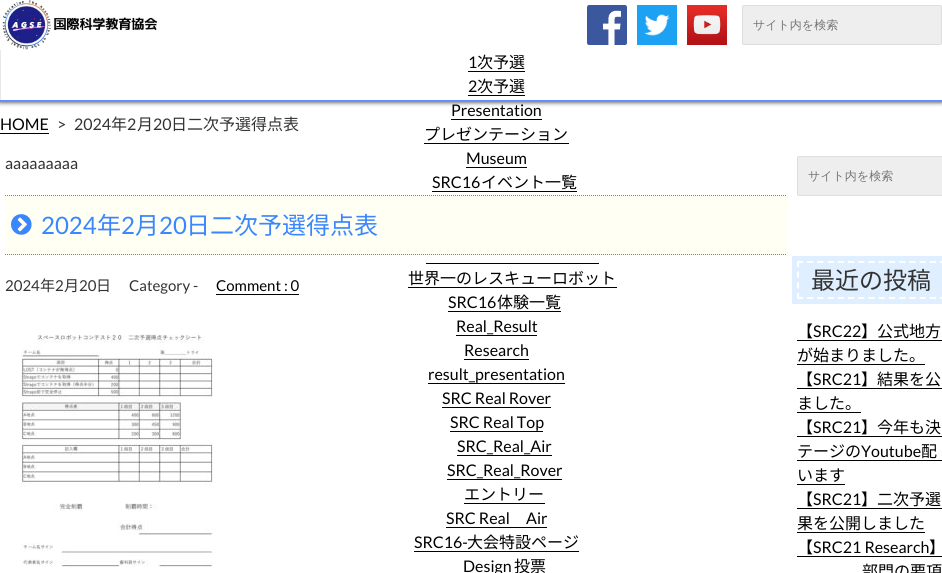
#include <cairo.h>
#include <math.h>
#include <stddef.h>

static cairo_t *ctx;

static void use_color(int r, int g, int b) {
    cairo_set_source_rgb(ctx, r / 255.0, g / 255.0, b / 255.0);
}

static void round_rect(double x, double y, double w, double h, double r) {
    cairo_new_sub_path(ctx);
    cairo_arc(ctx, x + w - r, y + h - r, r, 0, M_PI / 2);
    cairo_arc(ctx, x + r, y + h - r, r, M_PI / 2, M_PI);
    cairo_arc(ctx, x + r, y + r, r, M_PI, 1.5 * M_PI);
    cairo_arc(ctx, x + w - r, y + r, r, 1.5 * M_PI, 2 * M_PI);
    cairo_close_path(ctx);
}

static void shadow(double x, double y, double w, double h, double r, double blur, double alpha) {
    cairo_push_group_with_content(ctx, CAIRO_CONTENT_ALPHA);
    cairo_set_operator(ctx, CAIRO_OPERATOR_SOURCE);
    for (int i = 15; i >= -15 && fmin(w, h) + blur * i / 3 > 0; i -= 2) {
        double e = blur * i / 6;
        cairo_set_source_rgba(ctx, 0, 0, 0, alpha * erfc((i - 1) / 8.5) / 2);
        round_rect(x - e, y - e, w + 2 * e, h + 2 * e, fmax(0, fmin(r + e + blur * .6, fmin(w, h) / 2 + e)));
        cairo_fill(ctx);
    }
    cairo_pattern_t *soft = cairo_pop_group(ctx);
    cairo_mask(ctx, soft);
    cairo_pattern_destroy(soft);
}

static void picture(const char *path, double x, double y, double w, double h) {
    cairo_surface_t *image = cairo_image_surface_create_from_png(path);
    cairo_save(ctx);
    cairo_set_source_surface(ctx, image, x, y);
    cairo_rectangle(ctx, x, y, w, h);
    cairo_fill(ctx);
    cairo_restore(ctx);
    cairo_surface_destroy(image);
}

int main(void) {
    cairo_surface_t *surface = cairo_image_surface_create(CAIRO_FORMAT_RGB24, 942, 573);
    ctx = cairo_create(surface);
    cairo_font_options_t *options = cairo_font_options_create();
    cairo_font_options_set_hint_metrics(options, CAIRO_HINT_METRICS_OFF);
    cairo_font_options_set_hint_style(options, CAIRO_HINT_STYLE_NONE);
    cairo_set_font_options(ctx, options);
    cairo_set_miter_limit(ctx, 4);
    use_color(255, 255, 255);
    cairo_paint(ctx);
    cairo_select_font_face(ctx, "Lato", CAIRO_FONT_SLANT_NORMAL, CAIRO_FONT_WEIGHT_NORMAL);
    cairo_set_font_size(ctx, 16);
    use_color(0, 0, 0);
    cairo_move_to(ctx, 0, 130);
    cairo_show_text(ctx, "HOME");
    cairo_rectangle(ctx, 0, 133, 49, 1);
    cairo_fill(ctx);
    use_color(51, 51, 51);
    cairo_move_to(ctx, 57, 130);
    cairo_show_text(ctx, ">");
    cairo_move_to(ctx, 74, 130);
    cairo_show_text(ctx, "2024");
    cairo_select_font_face(ctx, "Noto Sans JP", CAIRO_FONT_SLANT_NORMAL, CAIRO_FONT_WEIGHT_NORMAL);
    cairo_move_to(ctx, 111, 130);
    cairo_show_text(ctx, "年");
    cairo_select_font_face(ctx, "Lato", CAIRO_FONT_SLANT_NORMAL, CAIRO_FONT_WEIGHT_NORMAL);
    cairo_move_to(ctx, 127, 130);
    cairo_show_text(ctx, "2");
    cairo_select_font_face(ctx, "Noto Sans JP", CAIRO_FONT_SLANT_NORMAL, CAIRO_FONT_WEIGHT_NORMAL);
    cairo_move_to(ctx, 137, 130);
    cairo_show_text(ctx, "月");
    cairo_select_font_face(ctx, "Lato", CAIRO_FONT_SLANT_NORMAL, CAIRO_FONT_WEIGHT_NORMAL);
    cairo_move_to(ctx, 153, 130);
    cairo_show_text(ctx, "20");
    cairo_select_font_face(ctx, "Noto Sans JP", CAIRO_FONT_SLANT_NORMAL, CAIRO_FONT_WEIGHT_NORMAL);
    cairo_move_to(ctx, 171, 130);
    cairo_show_text(ctx, "日二次予選得点表");
    cairo_save(ctx);
    cairo_rectangle(ctx, 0, 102, 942, 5);
    cairo_clip(ctx);
    use_color(51, 51, 51);
    shadow(0, 0, 942, 102, 0, 2.5, 1);
    cairo_restore(ctx);
    use_color(104, 139, 255);
    cairo_rectangle(ctx, 0, 100, 942, 2);
    cairo_fill(ctx);
    picture("img1.png", 2, 0, 156, 50);
    picture("img2.png", 587, 5, 40, 40);
    picture("img3.png", 637, 5, 40, 40);
    picture("img4.png", 687, 5, 40, 40);
    use_color(238, 238, 238);
    round_rect(742.5, 5.5, 199, 39, 1.5);
    cairo_fill_preserve(ctx);
    use_color(221, 221, 221);
    cairo_set_line_width(ctx, 1);
    cairo_stroke(ctx);
    cairo_select_font_face(ctx, "WenQuanYi Zen Hei Medium", CAIRO_FONT_SLANT_NORMAL, CAIRO_FONT_WEIGHT_NORMAL);
    cairo_set_font_size(ctx, 12);
    use_color(117, 117, 117);
    cairo_move_to(ctx, 753, 29);
    cairo_show_text(ctx, "サイト内を検索");
    use_color(232, 232, 232);
    cairo_rectangle(ctx, 0, 50, 1, 50);
    cairo_fill(ctx);
    cairo_select_font_face(ctx, "Lato", CAIRO_FONT_SLANT_NORMAL, CAIRO_FONT_WEIGHT_NORMAL);
    cairo_set_font_size(ctx, 16);
    use_color(0, 0, 0);
    cairo_move_to(ctx, 468, 68);
    cairo_show_text(ctx, "1");
    cairo_rectangle(ctx, 468, 71, 57, 1);
    cairo_fill(ctx);
    cairo_select_font_face(ctx, "Noto Sans JP", CAIRO_FONT_SLANT_NORMAL, CAIRO_FONT_WEIGHT_NORMAL);
    cairo_move_to(ctx, 477, 68);
    cairo_show_text(ctx, "次予選");
    cairo_select_font_face(ctx, "Lato", CAIRO_FONT_SLANT_NORMAL, CAIRO_FONT_WEIGHT_NORMAL);
    cairo_move_to(ctx, 468, 92);
    cairo_show_text(ctx, "2");
    cairo_rectangle(ctx, 468, 95, 57, 1);
    cairo_fill(ctx);
    cairo_select_font_face(ctx, "Noto Sans JP", CAIRO_FONT_SLANT_NORMAL, CAIRO_FONT_WEIGHT_NORMAL);
    cairo_move_to(ctx, 477, 92);
    cairo_show_text(ctx, "次予選");
    cairo_select_font_face(ctx, "Lato", CAIRO_FONT_SLANT_NORMAL, CAIRO_FONT_WEIGHT_NORMAL);
    cairo_move_to(ctx, 451, 116);
    cairo_show_text(ctx, "Presentation");
    cairo_rectangle(ctx, 451, 119, 91, 1);
    cairo_fill(ctx);
    cairo_select_font_face(ctx, "Noto Sans JP", CAIRO_FONT_SLANT_NORMAL, CAIRO_FONT_WEIGHT_NORMAL);
    cairo_move_to(ctx, 424, 140);
    cairo_show_text(ctx, "プレゼンテーション");
    cairo_rectangle(ctx, 424, 143, 145, 1);
    cairo_fill(ctx);
    cairo_select_font_face(ctx, "Lato", CAIRO_FONT_SLANT_NORMAL, CAIRO_FONT_WEIGHT_NORMAL);
    cairo_move_to(ctx, 466, 164);
    cairo_show_text(ctx, "Museum");
    cairo_rectangle(ctx, 466, 167, 61, 1);
    cairo_fill(ctx);
    cairo_move_to(ctx, 432, 188);
    cairo_show_text(ctx, "SRC16");
    cairo_rectangle(ctx, 432, 191, 145, 1);
    cairo_fill(ctx);
    cairo_select_font_face(ctx, "Noto Sans JP", CAIRO_FONT_SLANT_NORMAL, CAIRO_FONT_WEIGHT_NORMAL);
    cairo_move_to(ctx, 481, 188);
    cairo_show_text(ctx, "イベント一覧");
    cairo_rectangle(ctx, 426, 263, 173, 1);
    cairo_fill(ctx);
    cairo_move_to(ctx, 408, 284);
    cairo_show_text(ctx, "世界一のレスキューロボット");
    cairo_rectangle(ctx, 408, 287, 209, 1);
    cairo_fill(ctx);
    cairo_select_font_face(ctx, "Lato", CAIRO_FONT_SLANT_NORMAL, CAIRO_FONT_WEIGHT_NORMAL);
    cairo_move_to(ctx, 448, 308);
    cairo_show_text(ctx, "SRC16");
    cairo_rectangle(ctx, 448, 311, 113, 1);
    cairo_fill(ctx);
    cairo_select_font_face(ctx, "Noto Sans JP", CAIRO_FONT_SLANT_NORMAL, CAIRO_FONT_WEIGHT_NORMAL);
    cairo_move_to(ctx, 497, 308);
    cairo_show_text(ctx, "体験一覧");
    cairo_select_font_face(ctx, "Lato", CAIRO_FONT_SLANT_NORMAL, CAIRO_FONT_WEIGHT_NORMAL);
    cairo_move_to(ctx, 456, 332);
    cairo_show_text(ctx, "Real_Result");
    cairo_rectangle(ctx, 456, 335, 81, 1);
    cairo_fill(ctx);
    cairo_move_to(ctx, 464, 356);
    cairo_show_text(ctx, "Research");
    cairo_rectangle(ctx, 464, 359, 65, 1);
    cairo_fill(ctx);
    cairo_move_to(ctx, 428, 380);
    cairo_show_text(ctx, "result_presentation");
    cairo_rectangle(ctx, 428, 383, 137, 1);
    cairo_fill(ctx);
    cairo_move_to(ctx, 442, 404);
    cairo_show_text(ctx, "SRC Real Rover");
    cairo_rectangle(ctx, 442, 407, 109, 1);
    cairo_fill(ctx);
    cairo_move_to(ctx, 450, 428);
    cairo_show_text(ctx, "SRC Real Top");
    cairo_rectangle(ctx, 450, 431, 93, 1);
    cairo_fill(ctx);
    cairo_move_to(ctx, 457, 452);
    cairo_show_text(ctx, "SRC_Real_Air");
    cairo_rectangle(ctx, 457, 455, 95, 1);
    cairo_fill(ctx);
    cairo_move_to(ctx, 447, 476);
    cairo_show_text(ctx, "SRC_Real_Rover");
    cairo_rectangle(ctx, 447, 479, 115, 1);
    cairo_fill(ctx);
    cairo_select_font_face(ctx, "Noto Sans JP", CAIRO_FONT_SLANT_NORMAL, CAIRO_FONT_WEIGHT_NORMAL);
    cairo_move_to(ctx, 464, 500);
    cairo_show_text(ctx, "エントリー");
    cairo_rectangle(ctx, 464, 503, 81, 1);
    cairo_fill(ctx);
    cairo_select_font_face(ctx, "Lato", CAIRO_FONT_SLANT_NORMAL, CAIRO_FONT_WEIGHT_NORMAL);
    cairo_move_to(ctx, 446, 524);
    cairo_show_text(ctx, "SRC Real");
    cairo_rectangle(ctx, 446, 527, 101, 1);
    cairo_fill(ctx);
    cairo_move_to(ctx, 526, 524);
    cairo_show_text(ctx, "Air");
    cairo_move_to(ctx, 414, 548);
    cairo_show_text(ctx, "SRC16-");
    cairo_rectangle(ctx, 414, 551, 165, 1);
    cairo_fill(ctx);
    cairo_select_font_face(ctx, "Noto Sans JP", CAIRO_FONT_SLANT_NORMAL, CAIRO_FONT_WEIGHT_NORMAL);
    cairo_move_to(ctx, 467, 548);
    cairo_show_text(ctx, "大会特設ページ");
    cairo_select_font_face(ctx, "Lato", CAIRO_FONT_SLANT_NORMAL, CAIRO_FONT_WEIGHT_NORMAL);
    cairo_move_to(ctx, 463, 572);
    cairo_show_text(ctx, "Design");
    cairo_select_font_face(ctx, "Noto Sans JP", CAIRO_FONT_SLANT_NORMAL, CAIRO_FONT_WEIGHT_NORMAL);
    cairo_move_to(ctx, 514, 572);
    cairo_show_text(ctx, "投票");
    cairo_select_font_face(ctx, "Lato", CAIRO_FONT_SLANT_NORMAL, CAIRO_FONT_WEIGHT_NORMAL);
    use_color(51, 51, 51);
    cairo_move_to(ctx, 5, 169);
    cairo_show_text(ctx, "aaaaaaaaa");
    use_color(255, 255, 244);
    cairo_rectangle(ctx, 5, 195, 782, 60);
    cairo_fill(ctx);
    cairo_new_path(ctx);
    cairo_move_to(ctx, 5, 195.5);
    cairo_line_to(ctx, 787, 195.5);
    use_color(128, 128, 128);
    cairo_set_dash(ctx, (double[]){1, 1}, 2, 0);
    cairo_stroke(ctx);
    cairo_new_path(ctx);
    cairo_move_to(ctx, 5, 254.5);
    cairo_line_to(ctx, 787, 254.5);
    cairo_stroke(ctx);
    picture("img5.png", 11, 214, 21, 21);
    cairo_set_font_size(ctx, 24);
    use_color(58, 134, 255);
    cairo_move_to(ctx, 41, 234);
    cairo_show_text(ctx, "2024");
    cairo_select_font_face(ctx, "Noto Sans JP", CAIRO_FONT_SLANT_NORMAL, CAIRO_FONT_WEIGHT_NORMAL);
    cairo_move_to(ctx, 97, 234);
    cairo_show_text(ctx, "年");
    cairo_select_font_face(ctx, "Lato", CAIRO_FONT_SLANT_NORMAL, CAIRO_FONT_WEIGHT_NORMAL);
    cairo_move_to(ctx, 121, 234);
    cairo_show_text(ctx, "2");
    cairo_select_font_face(ctx, "Noto Sans JP", CAIRO_FONT_SLANT_NORMAL, CAIRO_FONT_WEIGHT_NORMAL);
    cairo_move_to(ctx, 135, 234);
    cairo_show_text(ctx, "月");
    cairo_select_font_face(ctx, "Lato", CAIRO_FONT_SLANT_NORMAL, CAIRO_FONT_WEIGHT_NORMAL);
    cairo_move_to(ctx, 159, 234);
    cairo_show_text(ctx, "20");
    cairo_select_font_face(ctx, "Noto Sans JP", CAIRO_FONT_SLANT_NORMAL, CAIRO_FONT_WEIGHT_NORMAL);
    cairo_move_to(ctx, 186, 234);
    cairo_show_text(ctx, "日二次予選得点表");
    cairo_select_font_face(ctx, "Lato", CAIRO_FONT_SLANT_NORMAL, CAIRO_FONT_WEIGHT_NORMAL);
    cairo_set_font_size(ctx, 15);
    use_color(51, 51, 51);
    cairo_move_to(ctx, 5, 291);
    cairo_show_text(ctx, "2024");
    cairo_select_font_face(ctx, "Noto Sans JP", CAIRO_FONT_SLANT_NORMAL, CAIRO_FONT_WEIGHT_NORMAL);
    cairo_move_to(ctx, 40, 291);
    cairo_show_text(ctx, "年");
    cairo_select_font_face(ctx, "Lato", CAIRO_FONT_SLANT_NORMAL, CAIRO_FONT_WEIGHT_NORMAL);
    cairo_move_to(ctx, 55, 291);
    cairo_show_text(ctx, "2");
    cairo_select_font_face(ctx, "Noto Sans JP", CAIRO_FONT_SLANT_NORMAL, CAIRO_FONT_WEIGHT_NORMAL);
    cairo_move_to(ctx, 64, 291);
    cairo_show_text(ctx, "月");
    cairo_select_font_face(ctx, "Lato", CAIRO_FONT_SLANT_NORMAL, CAIRO_FONT_WEIGHT_NORMAL);
    cairo_move_to(ctx, 79, 291);
    cairo_show_text(ctx, "20");
    cairo_select_font_face(ctx, "Noto Sans JP", CAIRO_FONT_SLANT_NORMAL, CAIRO_FONT_WEIGHT_NORMAL);
    cairo_move_to(ctx, 96, 291);
    cairo_show_text(ctx, "日");
    cairo_select_font_face(ctx, "Lato", CAIRO_FONT_SLANT_NORMAL, CAIRO_FONT_WEIGHT_NORMAL);
    cairo_move_to(ctx, 129, 291);
    cairo_show_text(ctx, "Category -");
    use_color(0, 0, 0);
    cairo_move_to(ctx, 216, 291);
    cairo_show_text(ctx, "Comment : 0");
    cairo_rectangle(ctx, 216, 294, 83, 1);
    cairo_fill(ctx);
    picture("img6.png", 21, 334, 192, 233);
    use_color(238, 238, 238);
    round_rect(797.5, 156.5, 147, 39, 1.5);
    cairo_fill_preserve(ctx);
    use_color(221, 221, 221);
    cairo_set_dash(ctx, NULL, 0, 0);
    cairo_stroke(ctx);
    cairo_select_font_face(ctx, "WenQuanYi Zen Hei Medium", CAIRO_FONT_SLANT_NORMAL, CAIRO_FONT_WEIGHT_NORMAL);
    cairo_set_font_size(ctx, 12);
    use_color(117, 117, 117);
    cairo_move_to(ctx, 808, 180);
    cairo_show_text(ctx, "サイト内を検索");
    cairo_rectangle(ctx, 794.5, 258.5, 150, 43);
    use_color(223, 239, 255);
    cairo_set_line_width(ctx, 5);
    cairo_stroke(ctx);
    cairo_rectangle(ctx, 797, 261, 145, 38);
    cairo_fill(ctx);
    cairo_new_path(ctx);
    cairo_move_to(ctx, 797, 262);
    cairo_line_to(ctx, 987, 262);
    use_color(255, 255, 255);
    cairo_set_line_width(ctx, 2);
    cairo_set_dash(ctx, (double[]){6, 4.22}, 2, 0);
    cairo_stroke(ctx);
    cairo_new_path(ctx);
    cairo_move_to(ctx, 797, 298);
    cairo_line_to(ctx, 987, 298);
    cairo_stroke(ctx);
    cairo_new_path(ctx);
    cairo_move_to(ctx, 798, 261);
    cairo_line_to(ctx, 798, 299);
    cairo_set_dash(ctx, (double[]){6, 4.67}, 2, 0);
    cairo_stroke(ctx);
    cairo_select_font_face(ctx, "Noto Sans JP", CAIRO_FONT_SLANT_NORMAL, CAIRO_FONT_WEIGHT_NORMAL);
    cairo_set_font_size(ctx, 24);
    use_color(51, 51, 51);
    cairo_move_to(ctx, 811, 289);
    cairo_show_text(ctx, "最近の投稿");
    cairo_set_font_size(ctx, 16);
    use_color(0, 0, 0);
    cairo_move_to(ctx, 797, 337);
    cairo_show_text(ctx, "【");
    cairo_select_font_face(ctx, "Lato", CAIRO_FONT_SLANT_NORMAL, CAIRO_FONT_WEIGHT_NORMAL);
    cairo_move_to(ctx, 813, 337);
    cairo_show_text(ctx, "SRC22");
    cairo_rectangle(ctx, 797, 340, 145, 1);
    cairo_fill(ctx);
    cairo_select_font_face(ctx, "Noto Sans JP", CAIRO_FONT_SLANT_NORMAL, CAIRO_FONT_WEIGHT_NORMAL);
    cairo_move_to(ctx, 861, 337);
    cairo_show_text(ctx, "】公式地方");
    cairo_move_to(ctx, 797, 361);
    cairo_show_text(ctx, "が始まりました。");
    cairo_rectangle(ctx, 797, 364, 128, 1);
    cairo_fill(ctx);
    cairo_move_to(ctx, 797, 385);
    cairo_show_text(ctx, "【");
    cairo_select_font_face(ctx, "Lato", CAIRO_FONT_SLANT_NORMAL, CAIRO_FONT_WEIGHT_NORMAL);
    cairo_move_to(ctx, 813, 385);
    cairo_show_text(ctx, "SRC21");
    cairo_rectangle(ctx, 797, 388, 145, 1);
    cairo_fill(ctx);
    cairo_select_font_face(ctx, "Noto Sans JP", CAIRO_FONT_SLANT_NORMAL, CAIRO_FONT_WEIGHT_NORMAL);
    cairo_move_to(ctx, 861, 385);
    cairo_show_text(ctx, "】結果を公");
    cairo_move_to(ctx, 797, 409);
    cairo_show_text(ctx, "ました。");
    cairo_rectangle(ctx, 797, 412, 64, 1);
    cairo_fill(ctx);
    cairo_move_to(ctx, 797, 433);
    cairo_show_text(ctx, "【");
    cairo_select_font_face(ctx, "Lato", CAIRO_FONT_SLANT_NORMAL, CAIRO_FONT_WEIGHT_NORMAL);
    cairo_move_to(ctx, 813, 433);
    cairo_show_text(ctx, "SRC21");
    cairo_rectangle(ctx, 797, 436, 145, 1);
    cairo_fill(ctx);
    cairo_select_font_face(ctx, "Noto Sans JP", CAIRO_FONT_SLANT_NORMAL, CAIRO_FONT_WEIGHT_NORMAL);
    cairo_move_to(ctx, 861, 433);
    cairo_show_text(ctx, "】今年も決");
    cairo_move_to(ctx, 797, 457);
    cairo_show_text(ctx, "テージの");
    cairo_select_font_face(ctx, "Lato", CAIRO_FONT_SLANT_NORMAL, CAIRO_FONT_WEIGHT_NORMAL);
    cairo_move_to(ctx, 861, 457);
    cairo_show_text(ctx, "Youtube");
    cairo_rectangle(ctx, 797, 460, 145, 1);
    cairo_fill(ctx);
    cairo_select_font_face(ctx, "Noto Sans JP", CAIRO_FONT_SLANT_NORMAL, CAIRO_FONT_WEIGHT_NORMAL);
    cairo_move_to(ctx, 921, 457);
    cairo_show_text(ctx, "配");
    cairo_move_to(ctx, 797, 481);
    cairo_show_text(ctx, "います");
    cairo_rectangle(ctx, 797, 484, 48, 1);
    cairo_fill(ctx);
    cairo_move_to(ctx, 797, 505);
    cairo_show_text(ctx, "【");
    cairo_select_font_face(ctx, "Lato", CAIRO_FONT_SLANT_NORMAL, CAIRO_FONT_WEIGHT_NORMAL);
    cairo_move_to(ctx, 813, 505);
    cairo_show_text(ctx, "SRC21");
    cairo_rectangle(ctx, 797, 508, 145, 1);
    cairo_fill(ctx);
    cairo_select_font_face(ctx, "Noto Sans JP", CAIRO_FONT_SLANT_NORMAL, CAIRO_FONT_WEIGHT_NORMAL);
    cairo_move_to(ctx, 861, 505);
    cairo_show_text(ctx, "】二次予選");
    cairo_move_to(ctx, 797, 529);
    cairo_show_text(ctx, "果を公開しました");
    cairo_rectangle(ctx, 797, 532, 128, 1);
    cairo_fill(ctx);
    cairo_move_to(ctx, 797, 553);
    cairo_show_text(ctx, "【");
    cairo_select_font_face(ctx, "Lato", CAIRO_FONT_SLANT_NORMAL, CAIRO_FONT_WEIGHT_NORMAL);
    cairo_move_to(ctx, 813, 553);
    cairo_show_text(ctx, "SRC21 Research");
    cairo_rectangle(ctx, 797, 556, 145, 1);
    cairo_fill(ctx);
    cairo_select_font_face(ctx, "Noto Sans JP", CAIRO_FONT_SLANT_NORMAL, CAIRO_FONT_WEIGHT_NORMAL);
    cairo_move_to(ctx, 929, 553);
    cairo_show_text(ctx, "】");
    cairo_move_to(ctx, 862, 577);
    cairo_show_text(ctx, "部門の要項");
    cairo_surface_write_to_png(surface, "result.png");
    cairo_font_options_destroy(options);
    cairo_destroy(ctx);
    cairo_surface_destroy(surface);
    return 0;
}
